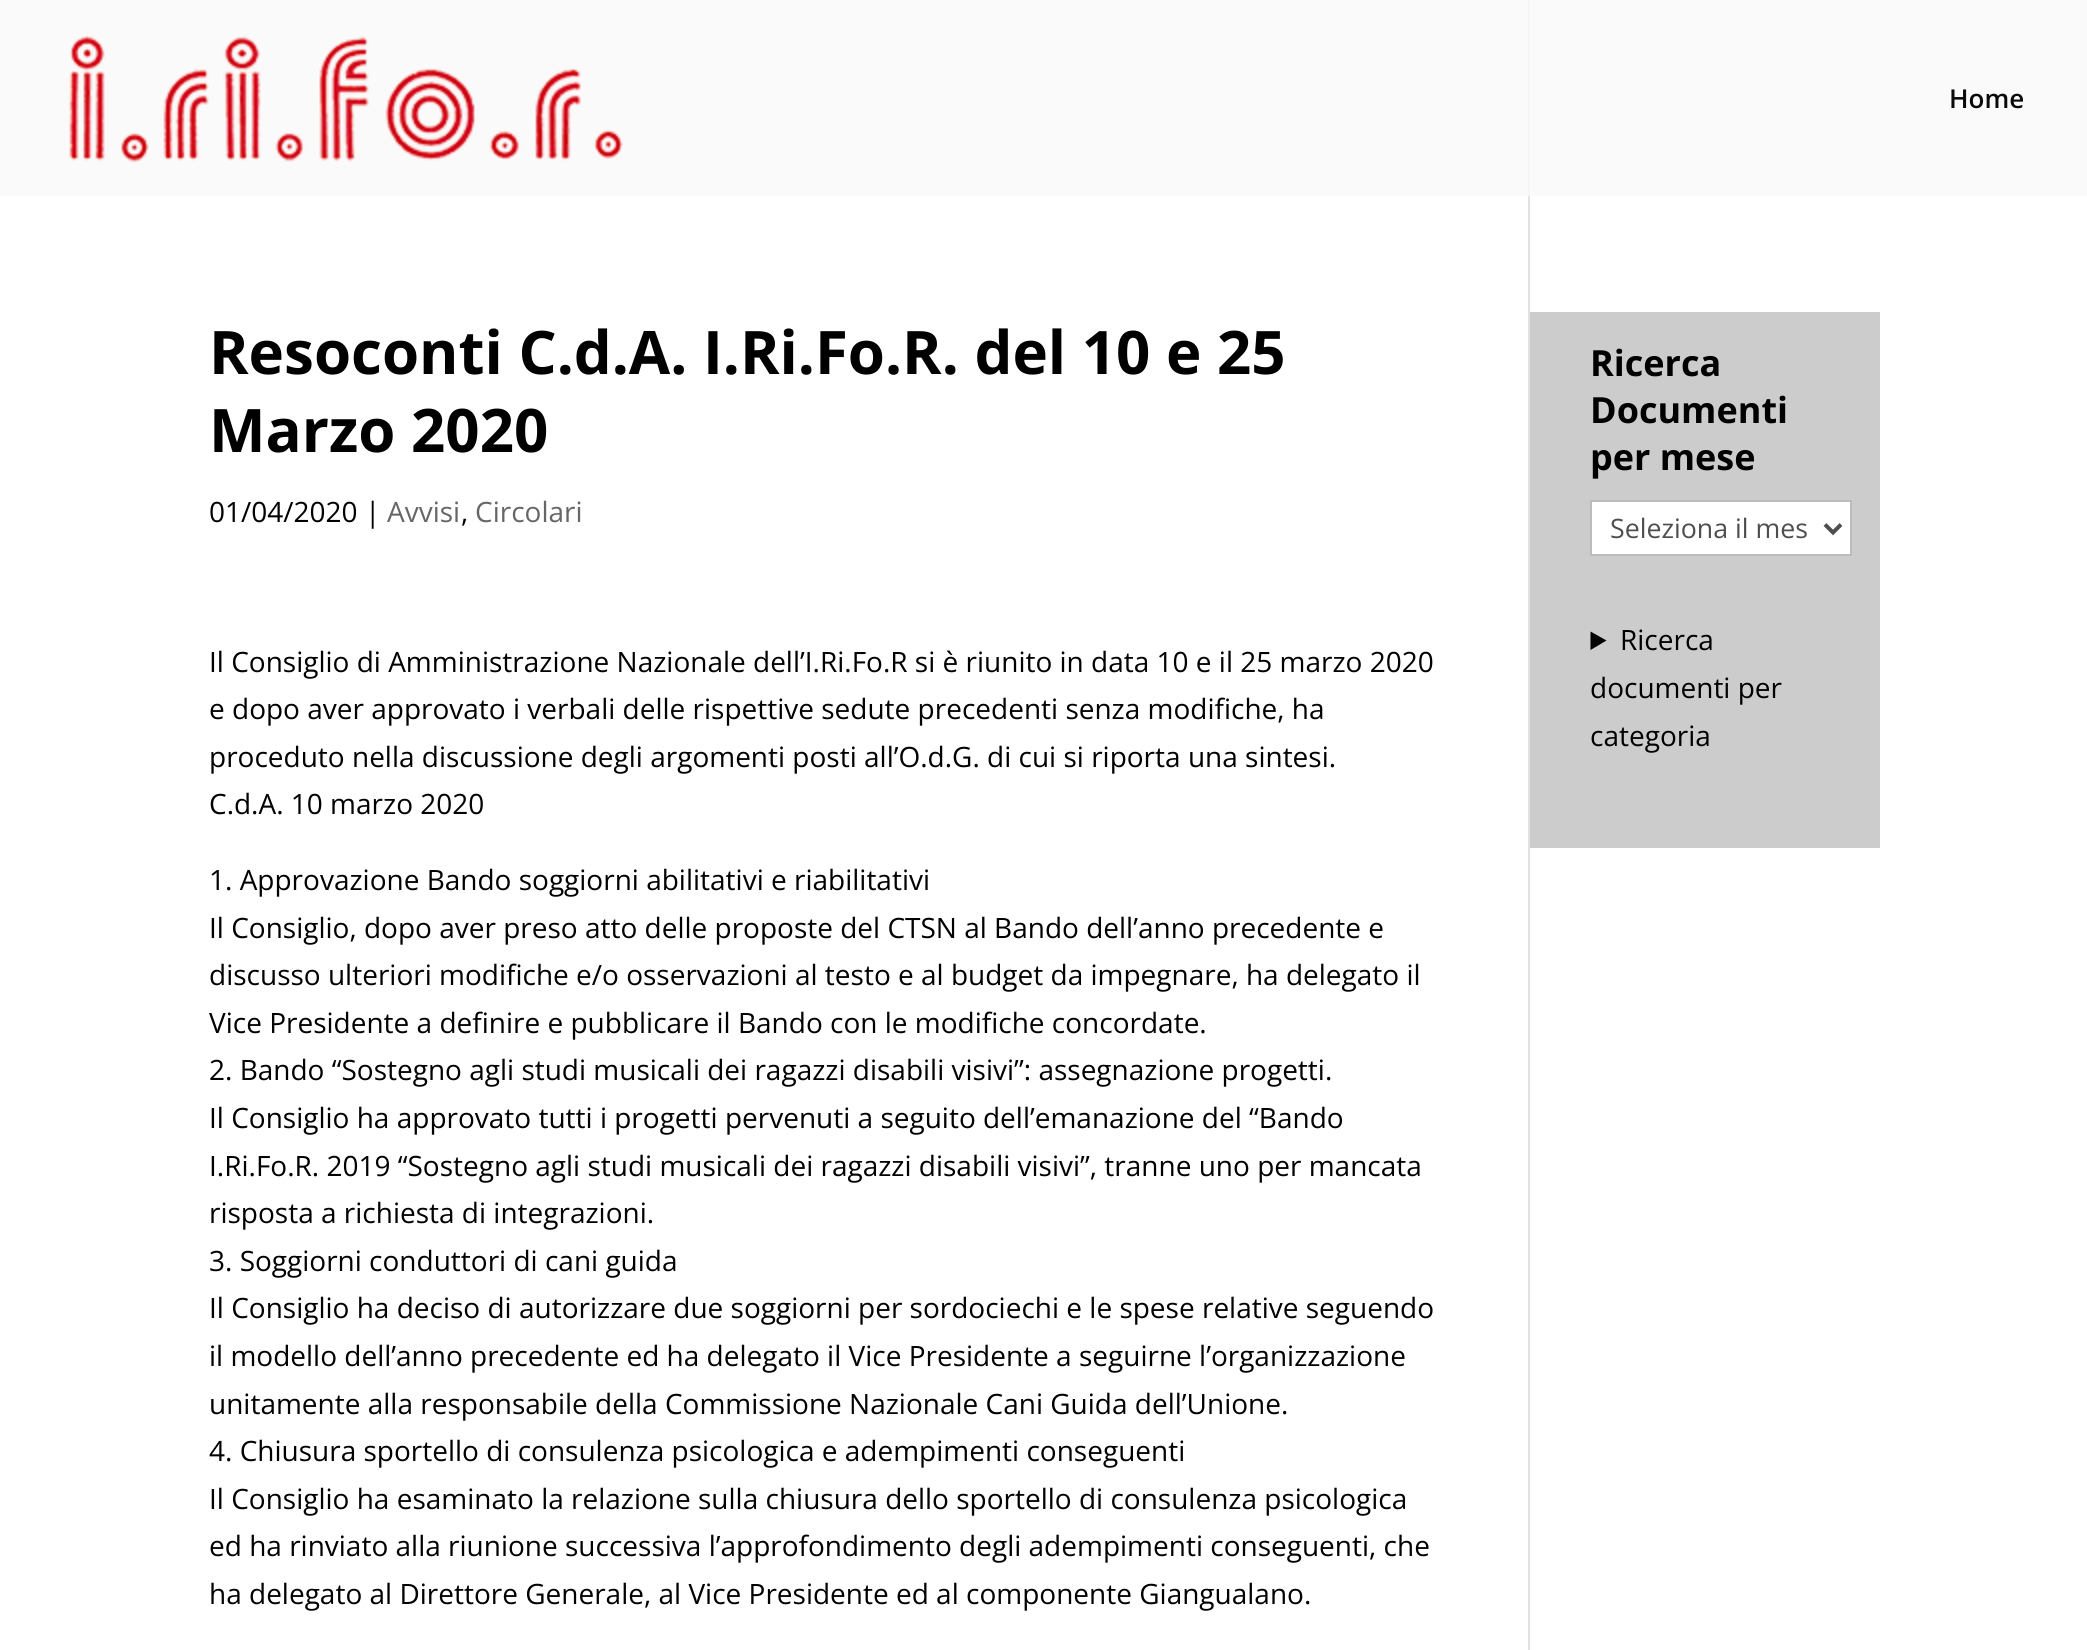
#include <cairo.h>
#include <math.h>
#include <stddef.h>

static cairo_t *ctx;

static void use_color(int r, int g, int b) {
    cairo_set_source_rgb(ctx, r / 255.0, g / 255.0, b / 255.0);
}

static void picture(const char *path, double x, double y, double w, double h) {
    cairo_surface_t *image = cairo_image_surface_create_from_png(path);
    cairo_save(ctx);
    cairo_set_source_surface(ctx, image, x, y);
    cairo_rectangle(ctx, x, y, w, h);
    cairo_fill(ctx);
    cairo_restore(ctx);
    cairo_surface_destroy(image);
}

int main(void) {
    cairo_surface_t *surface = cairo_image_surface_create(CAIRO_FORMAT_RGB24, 2087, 1650);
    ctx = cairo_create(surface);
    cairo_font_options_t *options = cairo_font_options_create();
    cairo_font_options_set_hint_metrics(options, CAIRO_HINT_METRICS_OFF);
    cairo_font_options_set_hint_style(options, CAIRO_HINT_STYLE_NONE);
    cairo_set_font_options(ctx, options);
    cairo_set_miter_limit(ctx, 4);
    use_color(255, 255, 255);
    cairo_paint(ctx);
    use_color(250, 250, 250);
    cairo_rectangle(ctx, 0, 0, 2087, 196);
    cairo_fill(ctx);
    picture("img1.png", 69, 36, 554, 126);
    cairo_select_font_face(ctx, "Open Sans SemiBold", CAIRO_FONT_SLANT_NORMAL, CAIRO_FONT_WEIGHT_NORMAL);
    cairo_set_font_size(ctx, 26);
    use_color(10, 10, 10);
    cairo_move_to(ctx, 1949, 108);
    cairo_show_text(ctx, "Home");
    use_color(226, 226, 226);
    cairo_rectangle(ctx, 1528, 196, 2, 1454);
    cairo_fill(ctx);
    use_color(246, 246, 246);
    cairo_rectangle(ctx, 1528, 0, 2, 196);
    cairo_fill(ctx);
    cairo_select_font_face(ctx, "Open Sans", CAIRO_FONT_SLANT_NORMAL, CAIRO_FONT_WEIGHT_BOLD);
    cairo_set_font_size(ctx, 60);
    use_color(0, 0, 0);
    cairo_move_to(ctx, 209, 374);
    cairo_show_text(ctx, "Resoconti C.d.A. I.Ri.Fo.R. del 10 e 25");
    cairo_move_to(ctx, 209, 452);
    cairo_show_text(ctx, "Marzo 2020");
    cairo_select_font_face(ctx, "Open Sans", CAIRO_FONT_SLANT_NORMAL, CAIRO_FONT_WEIGHT_NORMAL);
    cairo_set_font_size(ctx, 28);
    cairo_move_to(ctx, 209, 522);
    cairo_show_text(ctx, "01/04/2020 |");
    use_color(102, 102, 102);
    cairo_move_to(ctx, 387, 522);
    cairo_show_text(ctx, "Avvisi");
    use_color(0, 0, 0);
    cairo_move_to(ctx, 461, 522);
    cairo_show_text(ctx, ",");
    use_color(102, 102, 102);
    cairo_move_to(ctx, 475, 522);
    cairo_show_text(ctx, "Circolari");
    use_color(0, 0, 0);
    cairo_move_to(ctx, 209, 672);
    cairo_show_text(ctx, "Il Consiglio di Amministrazione Nazionale dell’I.Ri.Fo.R si è riunito in data 10 e il 25 marzo 2020");
    cairo_move_to(ctx, 209, 719);
    cairo_show_text(ctx, "e dopo aver approvato i verbali delle rispettive sedute precedenti senza modifiche, ha");
    cairo_move_to(ctx, 209, 767);
    cairo_show_text(ctx, "proceduto nella discussione degli argomenti posti all’O.d.G. di cui si riporta una sintesi.");
    cairo_move_to(ctx, 209, 814);
    cairo_show_text(ctx, "C.d.A. 10 marzo 2020");
    cairo_move_to(ctx, 209, 890);
    cairo_show_text(ctx, "1. Approvazione Bando soggiorni abilitativi e riabilitativi");
    cairo_move_to(ctx, 209, 938);
    cairo_show_text(ctx, "Il Consiglio, dopo aver preso atto delle proposte del CTSN al Bando dell’anno precedente e");
    cairo_move_to(ctx, 209, 985);
    cairo_show_text(ctx, "discusso ulteriori modifiche e/o osservazioni al testo e al budget da impegnare, ha delegato il");
    cairo_move_to(ctx, 209, 1033);
    cairo_show_text(ctx, "Vice Presidente a definire e pubblicare il Bando con le modifiche concordate.");
    cairo_move_to(ctx, 209, 1080);
    cairo_show_text(ctx, "2. Bando “Sostegno agli studi musicali dei ragazzi disabili visivi”: assegnazione progetti.");
    cairo_move_to(ctx, 209, 1128);
    cairo_show_text(ctx, "Il Consiglio ha approvato tutti i progetti pervenuti a seguito dell’emanazione del “Bando");
    cairo_move_to(ctx, 209, 1176);
    cairo_show_text(ctx, "I.Ri.Fo.R. 2019 “Sostegno agli studi musicali dei ragazzi disabili visivi”, tranne uno per mancata");
    cairo_move_to(ctx, 209, 1223);
    cairo_show_text(ctx, "risposta a richiesta di integrazioni.");
    cairo_move_to(ctx, 209, 1271);
    cairo_show_text(ctx, "3. Soggiorni conduttori di cani guida");
    cairo_move_to(ctx, 209, 1318);
    cairo_show_text(ctx, "Il Consiglio ha deciso di autorizzare due soggiorni per sordociechi e le spese relative seguendo");
    cairo_move_to(ctx, 209, 1366);
    cairo_show_text(ctx, "il modello dell’anno precedente ed ha delegato il Vice Presidente a seguirne l’organizzazione");
    cairo_move_to(ctx, 209, 1414);
    cairo_show_text(ctx, "unitamente alla responsabile della Commissione Nazionale Cani Guida dell’Unione.");
    cairo_move_to(ctx, 209, 1461);
    cairo_show_text(ctx, "4. Chiusura sportello di consulenza psicologica e adempimenti conseguenti");
    cairo_move_to(ctx, 209, 1509);
    cairo_show_text(ctx, "Il Consiglio ha esaminato la relazione sulla chiusura dello sportello di consulenza psicologica");
    cairo_move_to(ctx, 209, 1556);
    cairo_show_text(ctx, "ed ha rinviato alla riunione successiva l’approfondimento degli adempimenti conseguenti, che");
    cairo_move_to(ctx, 209, 1604);
    cairo_show_text(ctx, "ha delegato al Direttore Generale, al Vice Presidente ed al componente Giangualano.");
    use_color(204, 204, 204);
    cairo_rectangle(ctx, 1530, 312, 350, 536);
    cairo_fill(ctx);
    cairo_select_font_face(ctx, "Open Sans", CAIRO_FONT_SLANT_NORMAL, CAIRO_FONT_WEIGHT_BOLD);
    cairo_set_font_size(ctx, 36);
    use_color(0, 0, 0);
    cairo_move_to(ctx, 1590, 376);
    cairo_show_text(ctx, "Ricerca");
    cairo_move_to(ctx, 1590, 423);
    cairo_show_text(ctx, "Documenti");
    cairo_move_to(ctx, 1590, 470);
    cairo_show_text(ctx, "per mese");
    use_color(255, 255, 255);
    cairo_rectangle(ctx, 1591, 501, 260, 54);
    cairo_fill_preserve(ctx);
    use_color(187, 187, 187);
    cairo_stroke(ctx);
    cairo_new_path(ctx);
    cairo_move_to(ctx, 1825, 524.5);
    cairo_line_to(ctx, 1833, 532.5);
    cairo_line_to(ctx, 1841, 524.5);
    use_color(78, 78, 78);
    cairo_set_line_width(ctx, 4);
    cairo_stroke(ctx);
    cairo_select_font_face(ctx, "Open Sans", CAIRO_FONT_SLANT_NORMAL, CAIRO_FONT_WEIGHT_NORMAL);
    cairo_set_font_size(ctx, 26.75);
    cairo_move_to(ctx, 1610, 538);
    cairo_show_text(ctx, "Seleziona il mes");
    use_color(0, 0, 0);
    cairo_new_path(ctx);
    cairo_move_to(ctx, 1590.5, 631.5);
    cairo_line_to(ctx, 1606.5, 640.5);
    cairo_line_to(ctx, 1590.5, 650);
    cairo_close_path(ctx);
    cairo_fill(ctx);
    cairo_set_font_size(ctx, 28);
    cairo_move_to(ctx, 1620, 650);
    cairo_show_text(ctx, "Ricerca");
    cairo_move_to(ctx, 1590, 698);
    cairo_show_text(ctx, "documenti per");
    cairo_move_to(ctx, 1590, 746);
    cairo_show_text(ctx, "categoria");
    cairo_surface_write_to_png(surface, "result.png");
    cairo_font_options_destroy(options);
    cairo_destroy(ctx);
    cairo_surface_destroy(surface);
    return 0;
}
